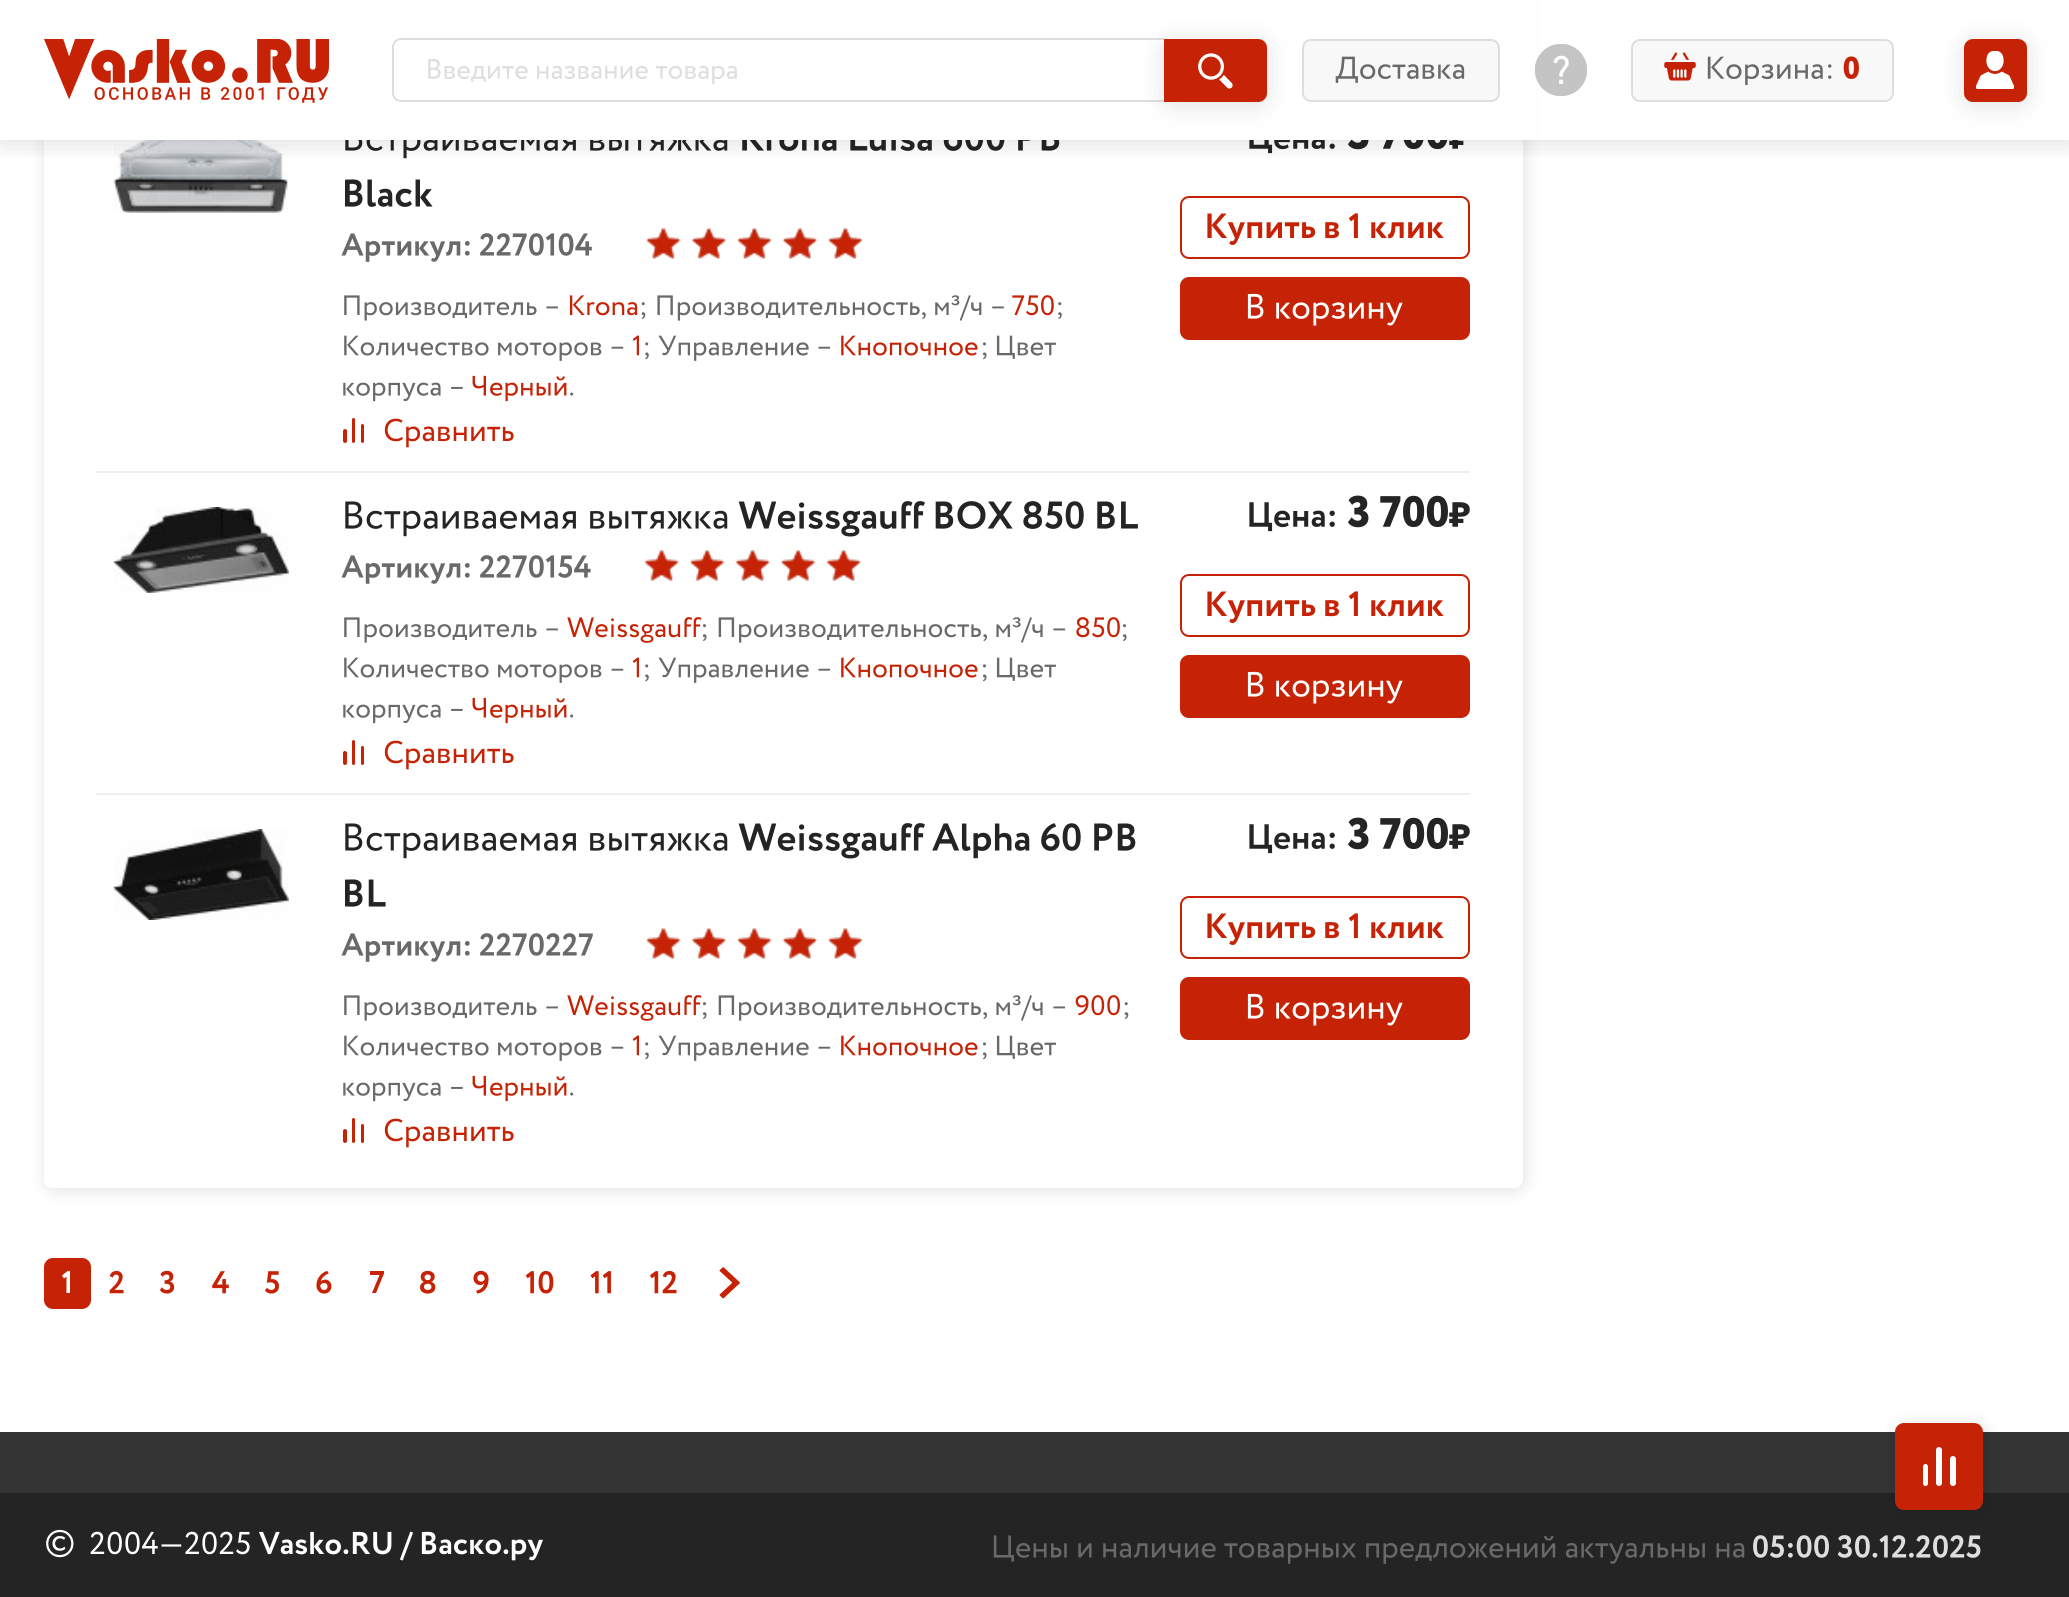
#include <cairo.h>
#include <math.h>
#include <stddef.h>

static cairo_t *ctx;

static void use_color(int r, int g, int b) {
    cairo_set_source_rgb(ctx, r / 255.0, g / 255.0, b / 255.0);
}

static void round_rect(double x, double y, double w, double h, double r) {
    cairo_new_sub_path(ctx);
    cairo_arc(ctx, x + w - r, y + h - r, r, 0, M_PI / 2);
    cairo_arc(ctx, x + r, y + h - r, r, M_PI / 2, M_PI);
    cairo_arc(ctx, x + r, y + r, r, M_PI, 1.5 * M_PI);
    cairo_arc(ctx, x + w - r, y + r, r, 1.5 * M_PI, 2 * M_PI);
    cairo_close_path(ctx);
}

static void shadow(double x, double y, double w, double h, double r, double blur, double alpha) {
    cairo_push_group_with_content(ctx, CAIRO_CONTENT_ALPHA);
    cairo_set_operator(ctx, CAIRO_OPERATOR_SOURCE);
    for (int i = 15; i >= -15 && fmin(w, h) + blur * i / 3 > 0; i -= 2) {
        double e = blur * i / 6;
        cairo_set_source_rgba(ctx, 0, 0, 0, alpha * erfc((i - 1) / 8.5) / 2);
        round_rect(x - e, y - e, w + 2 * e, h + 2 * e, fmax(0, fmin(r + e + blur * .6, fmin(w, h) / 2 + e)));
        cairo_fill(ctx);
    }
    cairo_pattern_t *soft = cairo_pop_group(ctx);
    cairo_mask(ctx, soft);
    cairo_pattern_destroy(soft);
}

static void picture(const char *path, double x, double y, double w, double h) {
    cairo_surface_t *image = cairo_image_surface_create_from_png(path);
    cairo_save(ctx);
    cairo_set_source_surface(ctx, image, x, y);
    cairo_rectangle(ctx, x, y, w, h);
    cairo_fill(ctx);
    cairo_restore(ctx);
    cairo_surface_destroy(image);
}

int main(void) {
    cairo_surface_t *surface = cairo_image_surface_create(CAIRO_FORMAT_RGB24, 2069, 1597);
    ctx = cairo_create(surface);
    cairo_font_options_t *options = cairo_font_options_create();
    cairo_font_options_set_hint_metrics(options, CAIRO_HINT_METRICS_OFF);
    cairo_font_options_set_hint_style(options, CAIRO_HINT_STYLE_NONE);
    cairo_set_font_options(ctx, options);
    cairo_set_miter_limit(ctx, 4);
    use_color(255, 255, 255);
    cairo_paint(ctx);
    cairo_save(ctx);
    cairo_set_fill_rule(ctx, CAIRO_FILL_RULE_EVEN_ODD);
    cairo_new_path(ctx);
    cairo_move_to(ctx, 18, 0);
    cairo_line_to(ctx, 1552, 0);
    cairo_line_to(ctx, 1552, 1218);
    cairo_line_to(ctx, 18, 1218);
    cairo_close_path(ctx);
    cairo_move_to(ctx, 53, -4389);
    cairo_line_to(ctx, 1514, -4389);
    cairo_curve_to(ctx, 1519, -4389, 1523, -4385, 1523, -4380);
    cairo_line_to(ctx, 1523, 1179);
    cairo_curve_to(ctx, 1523, 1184, 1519, 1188, 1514, 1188);
    cairo_line_to(ctx, 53, 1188);
    cairo_curve_to(ctx, 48, 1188, 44, 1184, 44, 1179);
    cairo_line_to(ctx, 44, -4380);
    cairo_curve_to(ctx, 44, -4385, 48, -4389, 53, -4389);
    cairo_close_path(ctx);
    cairo_clip(ctx);
    use_color(0, 0, 0);
    shadow(46, -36, 1478, 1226, 9, 9, 0.12);
    cairo_restore(ctx);
    use_color(255, 255, 255);
    cairo_rectangle(ctx, 34, 0, 1502, 140);
    cairo_fill(ctx);
    picture("img1.png", 44, 39, 285, 64);
    use_color(222, 222, 222);
    cairo_set_fill_rule(ctx, CAIRO_FILL_RULE_EVEN_ODD);
    cairo_new_path(ctx);
    cairo_move_to(ctx, 401, 38);
    cairo_line_to(ctx, 1164, 38);
    cairo_line_to(ctx, 1164, 102);
    cairo_line_to(ctx, 401, 102);
    cairo_curve_to(ctx, 396, 102, 392, 98, 392, 93);
    cairo_line_to(ctx, 392, 47);
    cairo_curve_to(ctx, 392, 42, 396, 38, 401, 38);
    cairo_close_path(ctx);
    cairo_move_to(ctx, 401, 40);
    cairo_line_to(ctx, 1164, 40);
    cairo_line_to(ctx, 1164, 100);
    cairo_line_to(ctx, 401, 100);
    cairo_curve_to(ctx, 397, 100, 394, 97, 394, 93);
    cairo_line_to(ctx, 394, 47);
    cairo_curve_to(ctx, 394, 43, 397, 40, 401, 40);
    cairo_close_path(ctx);
    cairo_fill(ctx);
    picture("img2.png", 428, 59, 309, 26);
    use_color(248, 248, 248);
    round_rect(1303, 40, 196, 61, 8);
    cairo_fill_preserve(ctx);
    use_color(222, 222, 222);
    cairo_stroke(ctx);
    picture("img34.png", 1249, 140, 86, 14);
    use_color(0, 0, 0);
    shadow(1164, 42, 103, 63, 9, 13, 0.12);
    use_color(198, 35, 6);
    cairo_new_path(ctx);
    cairo_move_to(ctx, 1165, 40);
    cairo_line_to(ctx, 1258, 40);
    cairo_curve_to(ctx, 1262.5, 40, 1266, 43.5, 1266, 48);
    cairo_line_to(ctx, 1266, 93);
    cairo_curve_to(ctx, 1266, 97.5, 1262.5, 101, 1258, 101);
    cairo_line_to(ctx, 1165, 101);
    cairo_close_path(ctx);
    cairo_fill_preserve(ctx);
    cairo_stroke(ctx);
    picture("img3.png", 1198, 53, 35, 36);
    picture("img4.png", 1335, 56, 130, 27);
    picture("img5.png", 1535, 44, 52, 52);
    use_color(248, 248, 248);
    round_rect(1632, 40, 261, 61, 8);
    cairo_fill_preserve(ctx);
    use_color(222, 222, 222);
    cairo_stroke(ctx);
    picture("img6.png", 1664, 52, 32, 29);
    picture("img7.png", 1707, 56, 125, 30);
    picture("img8.png", 1843, 56, 16, 23);
    use_color(0, 0, 0);
    shadow(1964, 42, 63, 63, 9, 13, 0.12);
    use_color(198, 35, 6);
    round_rect(1965, 40, 61, 61, 8);
    cairo_fill_preserve(ctx);
    cairo_stroke(ctx);
    picture("img9.png", 1976, 51, 38, 38);
    picture("img10.png", 113, 140, 176, 73);
    picture("img11.png", 345, 140, 383, 19);
    picture("img12.png", 742, 140, 318, 11);
    picture("img13.png", 345, 179, 88, 28);
    picture("img35.png", 1348, 140, 100, 10);
    picture("img36.png", 1449, 140, 15, 9);
    cairo_save(ctx);
    cairo_set_fill_rule(ctx, CAIRO_FILL_RULE_WINDING);
    cairo_rectangle(ctx, 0, 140, 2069, 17);
    cairo_clip(ctx);
    use_color(0, 0, 0);
    shadow(0, 4, 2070, 140, 0, 13, 0.12);
    cairo_restore(ctx);
    use_color(239, 239, 239);
    cairo_rectangle(ctx, 96, 471, 1374, 2);
    cairo_fill(ctx);
    picture("img14.png", 341, 233, 251, 29);
    picture("img15.png", 646, 228, 217, 31);
    picture("img16.png", 646, 227, 217, 32);
    picture("img17.png", 344, 295, 214, 26);
    picture("img18.png", 569, 295, 69, 21);
    picture("img19.png", 641, 302, 5, 17);
    picture("img20.png", 657, 295, 347, 26);
    picture("img21.png", 1012, 295, 42, 21);
    picture("img22.png", 1058, 302, 4, 17);
    picture("img23.png", 344, 335, 280, 26);
    picture("img24.png", 632, 335, 7, 21);
    picture("img25.png", 645, 342, 4, 18);
    picture("img26.png", 658, 335, 173, 26);
    picture("img27.png", 841, 335, 137, 21);
    picture("img28.png", 983, 342, 4, 18);
    picture("img29.png", 996, 335, 60, 24);
    picture("img30.png", 343, 382, 120, 20);
    picture("img31.png", 472, 375, 95, 27);
    picture("img32.png", 570, 392, 4, 4);
    use_color(198, 35, 6);
    round_rect(343, 429, 4, 14, 2);
    cairo_fill(ctx);
    round_rect(352, 418, 3, 25, 1.5);
    cairo_fill(ctx);
    round_rect(361, 424, 3, 19, 1.5);
    cairo_fill(ctx);
    picture("img33.png", 384, 418, 130, 30);
    round_rect(1181, 197, 288, 61, 8);
    cairo_stroke(ctx);
    picture("img37.png", 1207, 213, 109, 32);
    picture("img38.png", 1325, 213, 119, 26);
    round_rect(1181, 278, 288, 61, 8);
    cairo_fill_preserve(ctx);
    cairo_stroke(ctx);
    picture("img39.png", 1247, 293, 156, 33);
    use_color(239, 239, 239);
    cairo_rectangle(ctx, 96, 793, 1374, 2);
    cairo_fill(ctx);
    picture("img40.png", 113, 507, 176, 86);
    picture("img41.png", 345, 501, 383, 36);
    picture("img42.png", 738, 501, 400, 36);
    picture("img43.png", 341, 555, 250, 29);
    picture("img44.png", 644, 550, 217, 31);
    picture("img45.png", 644, 549, 218, 32);
    picture("img17.png", 344, 617, 214, 26);
    picture("img46.png", 567, 617, 135, 26);
    picture("img47.png", 703, 624, 4, 17);
    picture("img48.png", 718, 617, 348, 26);
    picture("img49.png", 1076, 617, 44, 21);
    picture("img47.png", 1123, 624, 4, 17);
    picture("img23.png", 344, 657, 280, 26);
    picture("img24.png", 632, 657, 7, 21);
    picture("img25.png", 645, 664, 4, 18);
    picture("img26.png", 658, 657, 173, 26);
    picture("img27.png", 841, 657, 137, 21);
    picture("img28.png", 983, 664, 4, 18);
    picture("img29.png", 996, 657, 60, 24);
    picture("img30.png", 343, 704, 120, 20);
    picture("img31.png", 472, 697, 95, 27);
    picture("img32.png", 570, 714, 4, 4);
    use_color(198, 35, 6);
    round_rect(343, 751, 4, 14, 2);
    cairo_fill(ctx);
    round_rect(352, 740, 3, 25, 1.5);
    cairo_fill(ctx);
    round_rect(361, 746, 3, 19, 1.5);
    cairo_fill(ctx);
    picture("img33.png", 384, 740, 130, 30);
    picture("img50.png", 1249, 502, 86, 30);
    picture("img51.png", 1348, 495, 100, 33);
    picture("img52.png", 1449, 502, 21, 25);
    round_rect(1181, 575, 288, 61, 8);
    cairo_stroke(ctx);
    picture("img37.png", 1207, 591, 109, 32);
    picture("img38.png", 1325, 591, 119, 26);
    round_rect(1181, 656, 288, 61, 8);
    cairo_fill_preserve(ctx);
    cairo_stroke(ctx);
    picture("img39.png", 1247, 671, 156, 33);
    picture("img53.png", 113, 829, 176, 91);
    picture("img41.png", 345, 823, 383, 36);
    picture("img54.png", 738, 823, 398, 36);
    picture("img55.png", 345, 879, 41, 28);
    picture("img56.png", 341, 933, 252, 29);
    picture("img15.png", 646, 928, 217, 31);
    picture("img16.png", 646, 927, 217, 32);
    picture("img17.png", 344, 995, 214, 26);
    picture("img46.png", 567, 995, 135, 26);
    picture("img47.png", 703, 1002, 4, 17);
    picture("img48.png", 718, 995, 348, 26);
    picture("img57.png", 1075, 995, 45, 21);
    picture("img19.png", 1124, 1002, 5, 17);
    picture("img23.png", 344, 1035, 280, 26);
    picture("img24.png", 632, 1035, 7, 21);
    picture("img25.png", 645, 1042, 4, 18);
    picture("img26.png", 658, 1035, 173, 26);
    picture("img27.png", 841, 1035, 137, 21);
    picture("img28.png", 983, 1042, 4, 18);
    picture("img29.png", 996, 1035, 60, 24);
    picture("img30.png", 343, 1082, 120, 20);
    picture("img31.png", 472, 1075, 95, 27);
    picture("img32.png", 570, 1092, 4, 4);
    round_rect(343, 1129, 4, 14, 2);
    cairo_fill(ctx);
    round_rect(352, 1118, 3, 25, 1.5);
    cairo_fill(ctx);
    round_rect(361, 1124, 3, 19, 1.5);
    cairo_fill(ctx);
    picture("img33.png", 384, 1118, 130, 30);
    picture("img50.png", 1249, 824, 86, 30);
    picture("img51.png", 1348, 817, 100, 33);
    picture("img52.png", 1449, 824, 21, 25);
    round_rect(1181, 897, 288, 61, 8);
    cairo_stroke(ctx);
    picture("img37.png", 1207, 913, 109, 32);
    picture("img38.png", 1325, 913, 119, 26);
    round_rect(1181, 978, 288, 61, 8);
    cairo_fill_preserve(ctx);
    cairo_stroke(ctx);
    picture("img39.png", 1247, 993, 156, 33);
    round_rect(44, 1258, 47, 51, 9);
    cairo_fill(ctx);
    use_color(255, 255, 255);
    cairo_set_fill_rule(ctx, CAIRO_FILL_RULE_WINDING);
    cairo_new_path(ctx);
    cairo_move_to(ctx, 62, 1275.5);
    cairo_line_to(ctx, 67.5, 1271);
    cairo_line_to(ctx, 70, 1271);
    cairo_line_to(ctx, 70, 1293);
    cairo_line_to(ctx, 66.5, 1293);
    cairo_line_to(ctx, 66.5, 1276.5);
    cairo_line_to(ctx, 64, 1278.5);
    cairo_close_path(ctx);
    cairo_fill(ctx);
    picture("img58.png", 109, 1270, 15, 24);
    picture("img59.png", 160, 1270, 15, 24);
    picture("img60.png", 212, 1271, 17, 23);
    picture("img61.png", 265, 1271, 14, 23);
    picture("img62.png", 316, 1270, 16, 24);
    use_color(198, 35, 6);
    cairo_new_path(ctx);
    cairo_move_to(ctx, 370, 1275);
    cairo_line_to(ctx, 370, 1271);
    cairo_line_to(ctx, 384, 1271);
    cairo_line_to(ctx, 384, 1273.5);
    cairo_line_to(ctx, 376, 1293);
    cairo_line_to(ctx, 372, 1293);
    cairo_line_to(ctx, 379.5, 1275);
    cairo_close_path(ctx);
    cairo_fill(ctx);
    picture("img63.png", 420, 1270, 16, 24);
    picture("img64.png", 473, 1270, 16, 24);
    picture("img65.png", 525, 1271, 29, 23);
    picture("img66.png", 590, 1271, 21, 23);
    picture("img67.png", 650, 1270, 27, 24);
    picture("img68.png", 719, 1267, 21, 32);
    use_color(52, 52, 52);
    cairo_rectangle(ctx, 0, 1432, 2069, 61);
    cairo_fill(ctx);
    use_color(36, 36, 36);
    cairo_rectangle(ctx, 0, 1493, 2069, 104);
    cairo_fill(ctx);
    picture("img73.png", 1753, 1535, 228, 23);
    use_color(0, 0, 0);
    shadow(1897, 1425, 88, 87, 9, 9, 0.12);
    use_color(198, 35, 6);
    round_rect(1896, 1424, 86, 85, 8);
    cairo_fill_preserve(ctx);
    cairo_stroke(ctx);
    use_color(255, 255, 255);
    round_rect(1923, 1464, 5, 22, 2.5);
    cairo_fill(ctx);
    round_rect(1936, 1447, 6, 39, 3);
    cairo_fill(ctx);
    round_rect(1950, 1456, 6, 30, 3);
    cairo_fill(ctx);
    picture("img69.png", 46, 1529, 28, 29);
    picture("img70.png", 90, 1531, 160, 24);
    picture("img71.png", 259, 1531, 284, 30);
    picture("img72.png", 993, 1535, 752, 29);
    cairo_surface_write_to_png(surface, "result.png");
    cairo_font_options_destroy(options);
    cairo_destroy(ctx);
    cairo_surface_destroy(surface);
    return 0;
}
